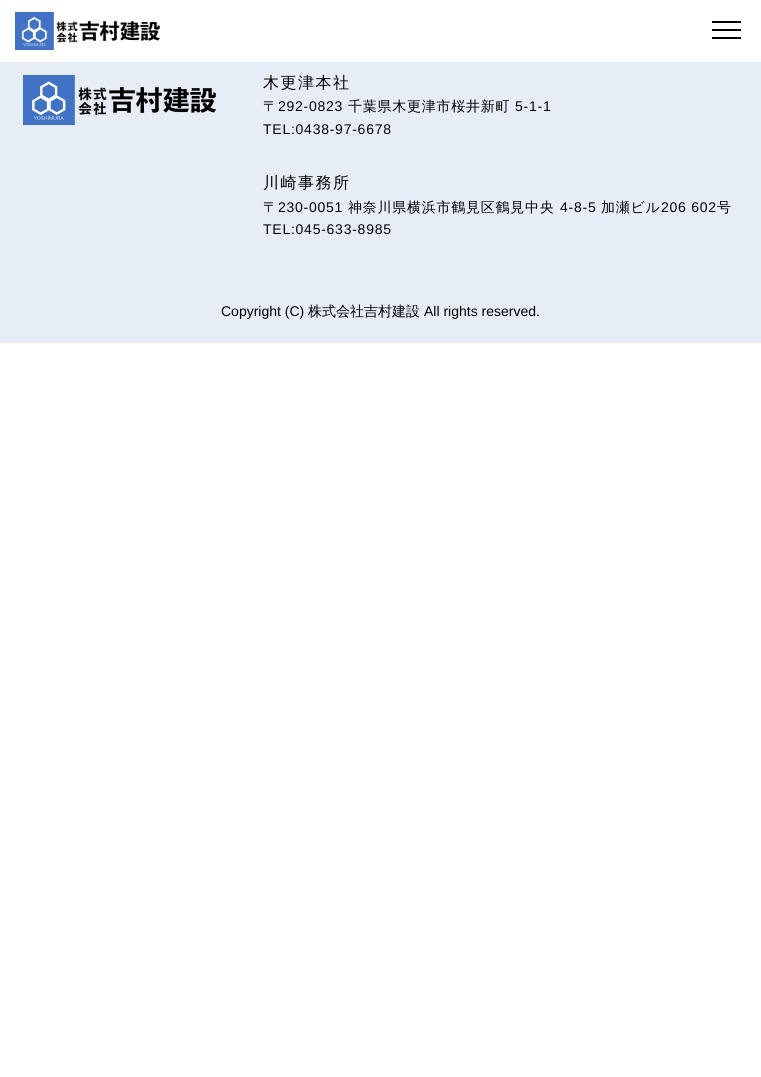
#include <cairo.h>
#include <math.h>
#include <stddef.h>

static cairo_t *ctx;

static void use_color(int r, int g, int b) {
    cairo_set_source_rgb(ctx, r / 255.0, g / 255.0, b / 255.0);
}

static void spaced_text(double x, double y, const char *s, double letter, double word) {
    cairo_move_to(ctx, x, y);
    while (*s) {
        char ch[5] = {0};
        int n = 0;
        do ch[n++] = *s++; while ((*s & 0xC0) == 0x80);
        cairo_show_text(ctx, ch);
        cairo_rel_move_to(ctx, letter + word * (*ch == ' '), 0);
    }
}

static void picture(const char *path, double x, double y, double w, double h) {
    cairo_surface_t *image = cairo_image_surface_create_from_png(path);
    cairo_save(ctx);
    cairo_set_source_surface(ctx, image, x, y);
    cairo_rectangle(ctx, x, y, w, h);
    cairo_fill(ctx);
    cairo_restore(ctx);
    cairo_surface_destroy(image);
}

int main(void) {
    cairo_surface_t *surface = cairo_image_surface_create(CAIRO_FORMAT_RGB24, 761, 1077);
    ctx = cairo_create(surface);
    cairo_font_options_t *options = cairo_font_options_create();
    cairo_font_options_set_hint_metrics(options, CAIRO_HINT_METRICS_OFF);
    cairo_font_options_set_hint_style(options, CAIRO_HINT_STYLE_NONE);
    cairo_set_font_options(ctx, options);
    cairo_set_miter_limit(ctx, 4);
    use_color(255, 255, 255);
    cairo_paint(ctx);
    picture("img1.png", 15, 12, 145, 38);
    use_color(0, 0, 0);
    cairo_rectangle(ctx, 712, 21, 29, 2);
    cairo_fill(ctx);
    cairo_rectangle(ctx, 712, 29, 29, 2);
    cairo_fill(ctx);
    cairo_rectangle(ctx, 712, 37, 29, 2);
    cairo_fill(ctx);
    use_color(230, 237, 247);
    cairo_rectangle(ctx, 0, 62, 761, 281);
    cairo_fill(ctx);
    picture("img2.png", 23, 75, 193, 50);
    cairo_select_font_face(ctx, "WenQuanYi Zen Hei Medium", CAIRO_FONT_SLANT_NORMAL, CAIRO_FONT_WEIGHT_NORMAL);
    cairo_set_font_size(ctx, 16);
    use_color(0, 0, 0);
    spaced_text(263, 88, "⽊更津本社", 1.5, 0);
    cairo_set_font_size(ctx, 14);
    spaced_text(263, 111, "〒", 0.75, 0);
    cairo_select_font_face(ctx, "Liberation Sans", CAIRO_FONT_SLANT_NORMAL, CAIRO_FONT_WEIGHT_NORMAL);
    spaced_text(278, 111, "292-0823", 0.75, 0);
    cairo_select_font_face(ctx, "WenQuanYi Zen Hei Medium", CAIRO_FONT_SLANT_NORMAL, CAIRO_FONT_WEIGHT_NORMAL);
    spaced_text(348, 111, "千葉県⽊更津市桜井新町", 0.75, 0);
    cairo_select_font_face(ctx, "Liberation Sans", CAIRO_FONT_SLANT_NORMAL, CAIRO_FONT_WEIGHT_NORMAL);
    spaced_text(515, 111, "5-1-1", 0.75, 0);
    spaced_text(263, 134, "TEL:0438-97-6678", 0.75, 0);
    cairo_select_font_face(ctx, "WenQuanYi Zen Hei Medium", CAIRO_FONT_SLANT_NORMAL, CAIRO_FONT_WEIGHT_NORMAL);
    cairo_set_font_size(ctx, 16);
    spaced_text(263, 188, "川崎事務所", 1.5, 0);
    cairo_set_font_size(ctx, 14);
    spaced_text(263, 212, "〒", 0.75, 0);
    cairo_select_font_face(ctx, "Liberation Sans", CAIRO_FONT_SLANT_NORMAL, CAIRO_FONT_WEIGHT_NORMAL);
    spaced_text(278, 212, "230-0051", 0.75, 0);
    cairo_select_font_face(ctx, "WenQuanYi Zen Hei Medium", CAIRO_FONT_SLANT_NORMAL, CAIRO_FONT_WEIGHT_NORMAL);
    spaced_text(348, 212, "神奈川県横浜市鶴⾒区鶴⾒中央", 0.75, 0);
    cairo_select_font_face(ctx, "Liberation Sans", CAIRO_FONT_SLANT_NORMAL, CAIRO_FONT_WEIGHT_NORMAL);
    spaced_text(560, 212, "4-8-5", 0.75, 0);
    cairo_select_font_face(ctx, "WenQuanYi Zen Hei Medium", CAIRO_FONT_SLANT_NORMAL, CAIRO_FONT_WEIGHT_NORMAL);
    spaced_text(601, 212, "加瀬ビル", 0.75, 0);
    cairo_select_font_face(ctx, "Liberation Sans", CAIRO_FONT_SLANT_NORMAL, CAIRO_FONT_WEIGHT_NORMAL);
    spaced_text(661, 212, "206 602", 0.75, 0);
    cairo_select_font_face(ctx, "WenQuanYi Zen Hei Medium", CAIRO_FONT_SLANT_NORMAL, CAIRO_FONT_WEIGHT_NORMAL);
    spaced_text(717, 212, "号", 0.75, 0);
    cairo_select_font_face(ctx, "Liberation Sans", CAIRO_FONT_SLANT_NORMAL, CAIRO_FONT_WEIGHT_NORMAL);
    spaced_text(263, 234, "TEL:045-633-8985", 0.75, 0);
    cairo_move_to(ctx, 221, 316);
    cairo_show_text(ctx, "Copyright (C)");
    cairo_select_font_face(ctx, "WenQuanYi Zen Hei Medium", CAIRO_FONT_SLANT_NORMAL, CAIRO_FONT_WEIGHT_NORMAL);
    cairo_move_to(ctx, 308, 316);
    cairo_show_text(ctx, "株式会社吉村建設");
    cairo_select_font_face(ctx, "Liberation Sans", CAIRO_FONT_SLANT_NORMAL, CAIRO_FONT_WEIGHT_NORMAL);
    cairo_move_to(ctx, 424, 316);
    cairo_show_text(ctx, "All rights reserved.");
    cairo_surface_write_to_png(surface, "result.png");
    cairo_font_options_destroy(options);
    cairo_destroy(ctx);
    cairo_surface_destroy(surface);
    return 0;
}
